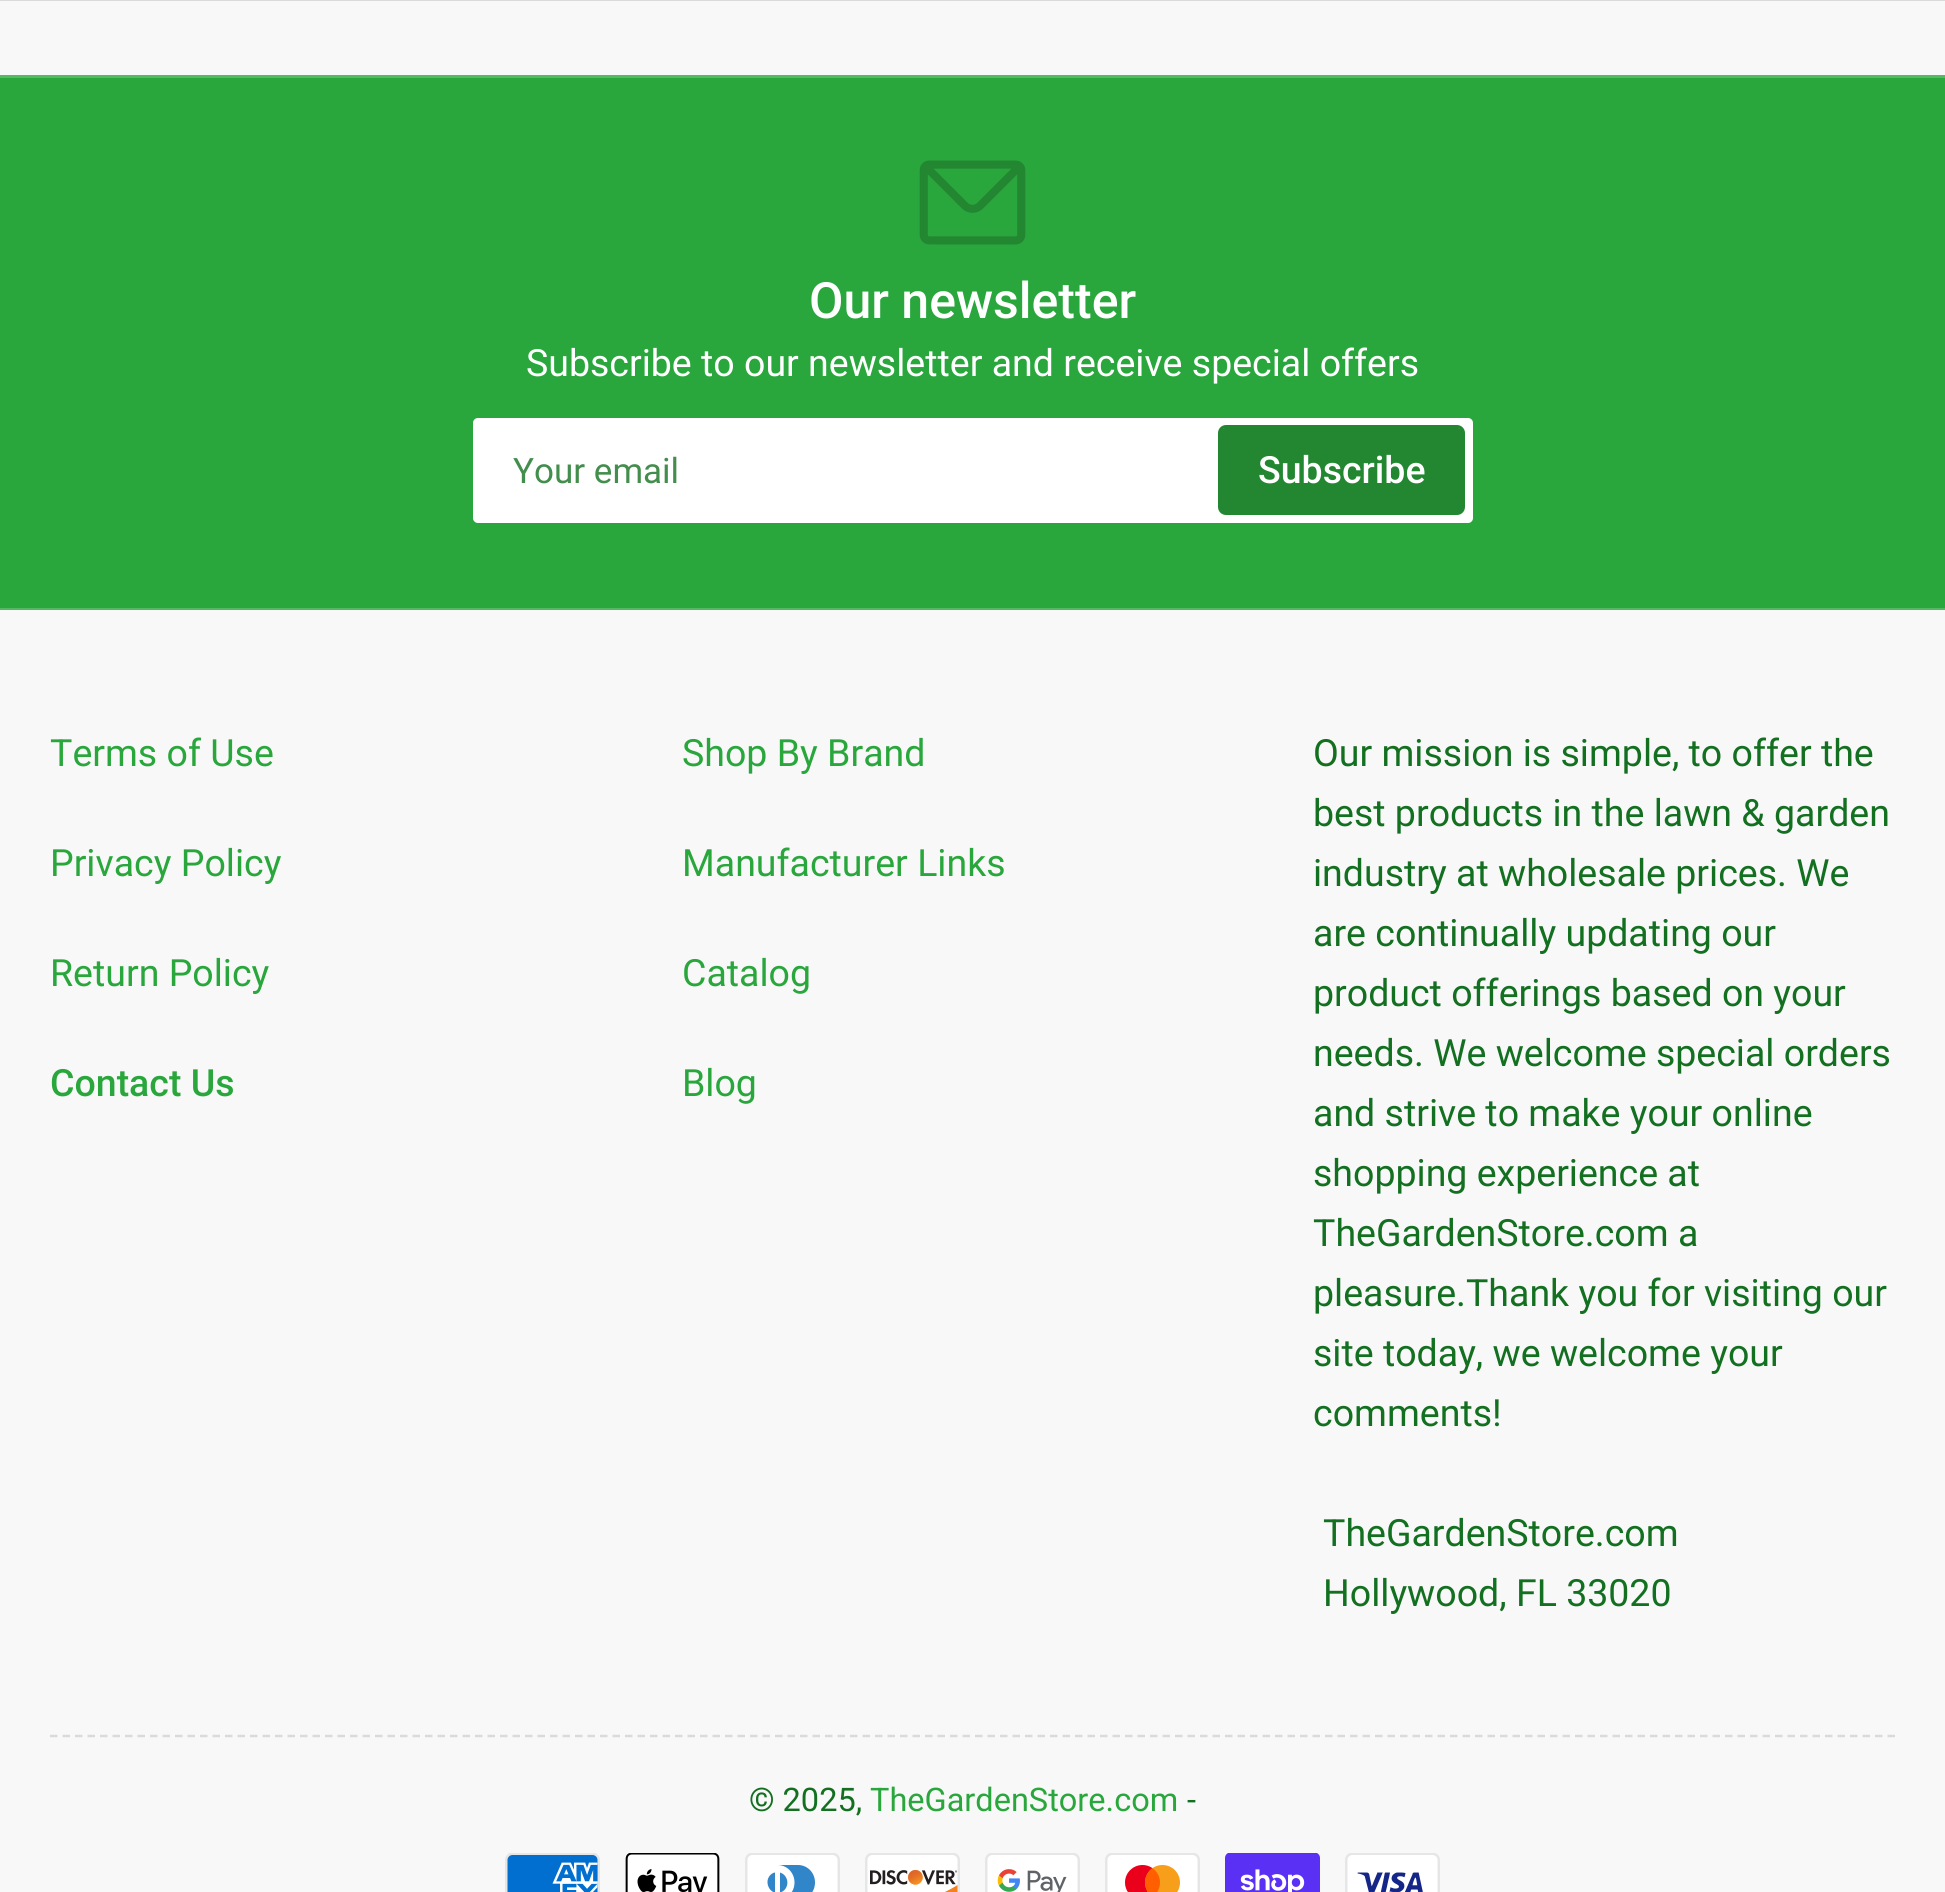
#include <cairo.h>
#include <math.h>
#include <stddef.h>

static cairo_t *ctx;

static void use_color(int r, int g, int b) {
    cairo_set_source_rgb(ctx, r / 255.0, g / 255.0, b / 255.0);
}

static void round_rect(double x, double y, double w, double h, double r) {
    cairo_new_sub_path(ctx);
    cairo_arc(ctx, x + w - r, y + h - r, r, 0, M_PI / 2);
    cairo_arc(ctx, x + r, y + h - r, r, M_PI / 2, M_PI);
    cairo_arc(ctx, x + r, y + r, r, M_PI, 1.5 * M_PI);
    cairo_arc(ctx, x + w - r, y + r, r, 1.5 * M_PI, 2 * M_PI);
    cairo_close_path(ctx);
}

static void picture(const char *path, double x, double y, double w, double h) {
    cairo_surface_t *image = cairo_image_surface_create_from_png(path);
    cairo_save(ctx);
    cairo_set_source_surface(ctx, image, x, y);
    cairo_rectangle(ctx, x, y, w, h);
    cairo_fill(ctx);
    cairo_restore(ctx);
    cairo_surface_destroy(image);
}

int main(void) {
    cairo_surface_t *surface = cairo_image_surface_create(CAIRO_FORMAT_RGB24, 1945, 1892);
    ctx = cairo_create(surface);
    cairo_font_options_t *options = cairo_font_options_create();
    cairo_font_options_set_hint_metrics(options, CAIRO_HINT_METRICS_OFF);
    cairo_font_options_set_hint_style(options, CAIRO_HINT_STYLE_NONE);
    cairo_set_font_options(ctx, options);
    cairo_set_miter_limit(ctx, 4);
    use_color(248, 248, 248);
    cairo_paint(ctx);
    use_color(218, 218, 218);
    cairo_rectangle(ctx, 0, 0, 1945, 1);
    cairo_fill(ctx);
    use_color(41, 167, 60);
    cairo_rectangle(ctx, 0, 78, 1945, 530);
    cairo_fill(ctx);
    use_color(84, 185, 99);
    cairo_rectangle(ctx, 0, 608, 1945, 2);
    cairo_fill(ctx);
    cairo_rectangle(ctx, 0, 75, 1945, 3);
    cairo_fill(ctx);
    picture("img1.png", 919, 160, 107, 85);
    cairo_select_font_face(ctx, "Roboto Medium", CAIRO_FONT_SLANT_NORMAL, CAIRO_FONT_WEIGHT_NORMAL);
    cairo_set_font_size(ctx, 50);
    use_color(255, 255, 255);
    cairo_move_to(ctx, 809, 318);
    cairo_show_text(ctx, "Our newsletter");
    cairo_select_font_face(ctx, "Roboto", CAIRO_FONT_SLANT_NORMAL, CAIRO_FONT_WEIGHT_NORMAL);
    cairo_set_font_size(ctx, 37.5);
    cairo_move_to(ctx, 526, 376);
    cairo_show_text(ctx, "Subscribe to our newsletter and receive special offers");
    round_rect(473, 418, 1000, 105, 5);
    cairo_fill(ctx);
    round_rect(474.5, 419.5, 997, 102, 3.5);
    cairo_set_source_rgba(ctx, 1, 1, 1, 0.2);
    cairo_set_line_width(ctx, 3);
    cairo_stroke(ctx);
    cairo_set_font_size(ctx, 35);
    use_color(67, 141, 77);
    cairo_move_to(ctx, 513, 483);
    cairo_show_text(ctx, "Your email");
    round_rect(1219.5, 426.5, 244, 87, 6.5);
    use_color(35, 135, 50);
    cairo_stroke(ctx);
    round_rect(1220, 428, 243, 85, 5);
    cairo_fill(ctx);
    cairo_select_font_face(ctx, "Roboto Medium", CAIRO_FONT_SLANT_NORMAL, CAIRO_FONT_WEIGHT_NORMAL);
    cairo_set_font_size(ctx, 37.5);
    use_color(255, 255, 255);
    cairo_move_to(ctx, 1258, 483);
    cairo_show_text(ctx, "Subscribe");
    cairo_select_font_face(ctx, "Roboto", CAIRO_FONT_SLANT_NORMAL, CAIRO_FONT_WEIGHT_NORMAL);
    use_color(41, 167, 60);
    cairo_move_to(ctx, 50, 766);
    cairo_show_text(ctx, "Terms of Use");
    cairo_move_to(ctx, 50, 876);
    cairo_show_text(ctx, "Privacy Policy");
    cairo_move_to(ctx, 50, 986);
    cairo_show_text(ctx, "Return Policy");
    cairo_select_font_face(ctx, "Roboto Medium", CAIRO_FONT_SLANT_NORMAL, CAIRO_FONT_WEIGHT_NORMAL);
    cairo_move_to(ctx, 50, 1096);
    cairo_show_text(ctx, "Contact Us");
    cairo_select_font_face(ctx, "Roboto", CAIRO_FONT_SLANT_NORMAL, CAIRO_FONT_WEIGHT_NORMAL);
    cairo_move_to(ctx, 682, 766);
    cairo_show_text(ctx, "Shop By Brand");
    cairo_move_to(ctx, 682, 876);
    cairo_show_text(ctx, "Manufacturer Links");
    cairo_move_to(ctx, 682, 986);
    cairo_show_text(ctx, "Catalog");
    cairo_move_to(ctx, 682, 1096);
    cairo_show_text(ctx, "Blog");
    use_color(20, 112, 33);
    cairo_move_to(ctx, 1313, 766);
    cairo_show_text(ctx, "Our mission is simple, to offer the");
    cairo_move_to(ctx, 1313, 826);
    cairo_show_text(ctx, "best products in the lawn & garden");
    cairo_move_to(ctx, 1313, 886);
    cairo_show_text(ctx, "industry at wholesale prices. We");
    cairo_move_to(ctx, 1313, 946);
    cairo_show_text(ctx, "are continually updating our");
    cairo_move_to(ctx, 1313, 1006);
    cairo_show_text(ctx, "product offerings based on your");
    cairo_move_to(ctx, 1313, 1066);
    cairo_show_text(ctx, "needs. We welcome special orders");
    cairo_move_to(ctx, 1313, 1126);
    cairo_show_text(ctx, "and strive to make your online");
    cairo_move_to(ctx, 1313, 1186);
    cairo_show_text(ctx, "shopping experience at");
    cairo_move_to(ctx, 1313, 1246);
    cairo_show_text(ctx, "TheGardenStore.com a");
    cairo_move_to(ctx, 1313, 1306);
    cairo_show_text(ctx, "pleasure.Thank you for visiting our");
    cairo_move_to(ctx, 1313, 1366);
    cairo_show_text(ctx, "site today, we welcome your");
    cairo_move_to(ctx, 1313, 1426);
    cairo_show_text(ctx, "comments!");
    cairo_move_to(ctx, 1323, 1546);
    cairo_show_text(ctx, "TheGardenStore.com");
    cairo_move_to(ctx, 1323, 1606);
    cairo_show_text(ctx, "Hollywood, FL 33020");
    cairo_new_path(ctx);
    cairo_move_to(ctx, 50, 1736);
    cairo_line_to(ctx, 1895, 1736);
    use_color(218, 218, 218);
    cairo_set_line_width(ctx, 2.5);
    cairo_set_dash(ctx, (double[]){7.5, 5}, 2, 0);
    cairo_stroke(ctx);
    cairo_set_font_size(ctx, 32.5);
    use_color(20, 112, 33);
    cairo_move_to(ctx, 749, 1811);
    cairo_show_text(ctx, "© 2025,");
    use_color(41, 167, 60);
    cairo_move_to(ctx, 870, 1811);
    cairo_show_text(ctx, "TheGardenStore.com");
    use_color(20, 112, 33);
    cairo_move_to(ctx, 1187, 1811);
    cairo_show_text(ctx, "-");
    picture("img2.png", 505, 1853, 95, 39);
    picture("img3.png", 625, 1853, 95, 39);
    picture("img4.png", 745, 1853, 95, 39);
    picture("img5.png", 865, 1853, 95, 39);
    picture("img6.png", 985, 1853, 95, 39);
    picture("img7.png", 1105, 1853, 95, 39);
    picture("img8.png", 1225, 1853, 95, 39);
    picture("img9.png", 1345, 1853, 95, 39);
    cairo_surface_write_to_png(surface, "result.png");
    cairo_font_options_destroy(options);
    cairo_destroy(ctx);
    cairo_surface_destroy(surface);
    return 0;
}
